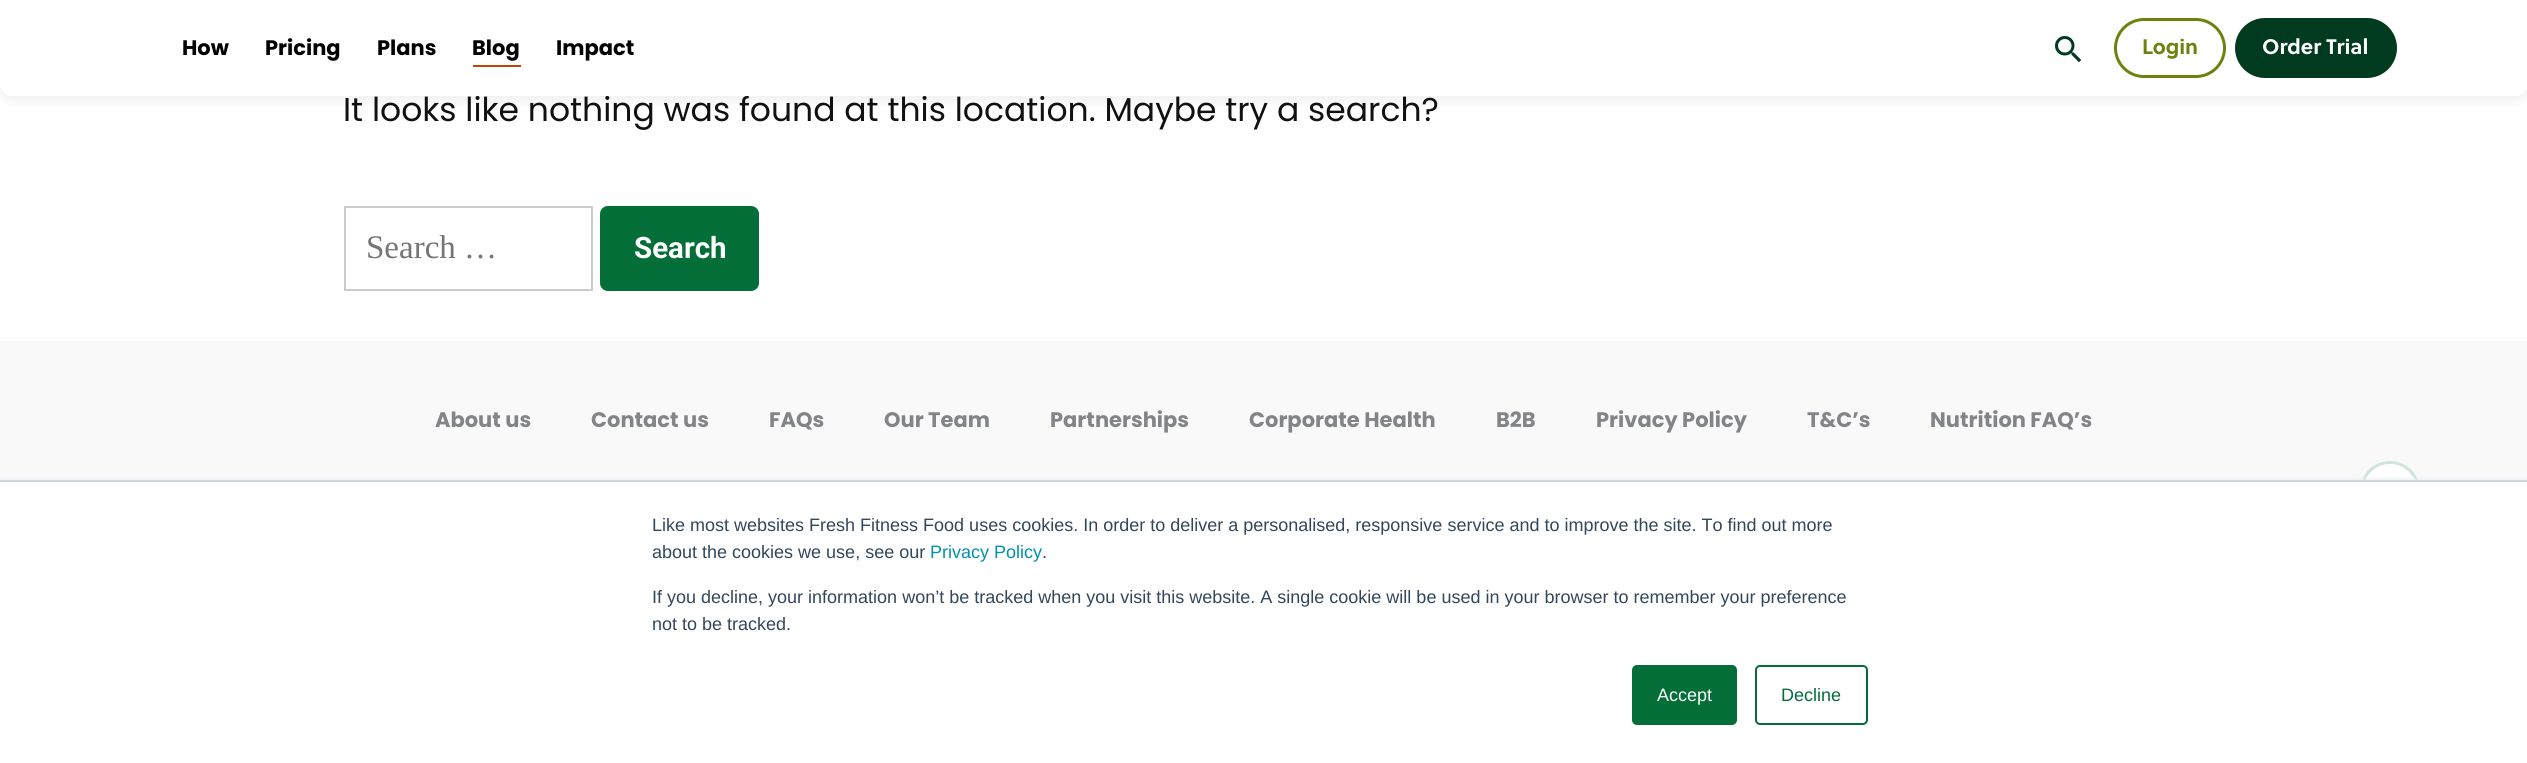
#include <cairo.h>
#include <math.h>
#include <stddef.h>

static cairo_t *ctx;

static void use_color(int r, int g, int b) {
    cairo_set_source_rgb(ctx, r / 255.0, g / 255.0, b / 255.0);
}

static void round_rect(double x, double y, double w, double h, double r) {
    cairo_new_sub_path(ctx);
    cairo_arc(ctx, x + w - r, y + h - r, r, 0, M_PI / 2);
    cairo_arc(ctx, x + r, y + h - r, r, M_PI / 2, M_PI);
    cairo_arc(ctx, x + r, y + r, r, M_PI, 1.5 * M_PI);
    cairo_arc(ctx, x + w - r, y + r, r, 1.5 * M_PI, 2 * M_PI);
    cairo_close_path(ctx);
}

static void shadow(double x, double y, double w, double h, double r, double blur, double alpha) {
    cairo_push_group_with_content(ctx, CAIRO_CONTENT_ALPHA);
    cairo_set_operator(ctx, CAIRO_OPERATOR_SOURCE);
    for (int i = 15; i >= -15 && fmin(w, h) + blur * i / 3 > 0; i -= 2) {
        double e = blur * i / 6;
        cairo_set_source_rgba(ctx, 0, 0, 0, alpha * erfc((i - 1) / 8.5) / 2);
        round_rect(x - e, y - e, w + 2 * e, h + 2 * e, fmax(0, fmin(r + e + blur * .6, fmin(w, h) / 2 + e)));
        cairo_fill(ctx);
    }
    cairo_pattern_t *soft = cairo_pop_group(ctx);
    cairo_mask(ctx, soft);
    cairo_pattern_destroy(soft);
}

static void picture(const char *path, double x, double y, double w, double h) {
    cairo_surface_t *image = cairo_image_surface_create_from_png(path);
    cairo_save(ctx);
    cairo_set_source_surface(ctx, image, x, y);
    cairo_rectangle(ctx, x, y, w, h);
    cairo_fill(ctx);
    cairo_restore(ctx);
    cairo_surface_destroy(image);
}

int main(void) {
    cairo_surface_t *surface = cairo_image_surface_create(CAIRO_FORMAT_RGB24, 2527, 763);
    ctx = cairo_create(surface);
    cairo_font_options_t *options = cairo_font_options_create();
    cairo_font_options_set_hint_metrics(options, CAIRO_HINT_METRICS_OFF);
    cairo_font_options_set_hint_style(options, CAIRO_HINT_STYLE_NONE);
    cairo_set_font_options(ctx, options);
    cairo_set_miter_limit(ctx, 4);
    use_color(255, 255, 255);
    cairo_paint(ctx);
    use_color(0, 0, 0);
    shadow(0, 3, 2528, 96, 12, 6, 0.08);
    cairo_select_font_face(ctx, "Poppins", CAIRO_FONT_SLANT_NORMAL, CAIRO_FONT_WEIGHT_NORMAL);
    cairo_set_font_size(ctx, 33);
    use_color(17, 17, 17);
    cairo_move_to(ctx, 343, 121);
    cairo_show_text(ctx, "It looks like nothing was found at this location. Maybe try a search?");
    use_color(255, 255, 255);
    cairo_new_path(ctx);
    cairo_move_to(ctx, 0, 0);
    cairo_line_to(ctx, 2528, 0);
    cairo_line_to(ctx, 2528, 84);
    cairo_curve_to(ctx, 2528, 90.5, 2522.5, 96, 2516, 96);
    cairo_line_to(ctx, 12, 96);
    cairo_curve_to(ctx, 5.5, 96, 0, 90.5, 0, 84);
    cairo_close_path(ctx);
    cairo_fill(ctx);
    cairo_select_font_face(ctx, "Poppins", CAIRO_FONT_SLANT_NORMAL, CAIRO_FONT_WEIGHT_BOLD);
    cairo_set_font_size(ctx, 21);
    use_color(0, 0, 0);
    cairo_move_to(ctx, 182, 55);
    cairo_show_text(ctx, "How");
    cairo_move_to(ctx, 265, 55);
    cairo_show_text(ctx, "Pricing");
    cairo_move_to(ctx, 377, 55);
    cairo_show_text(ctx, "Plans");
    use_color(194, 69, 4);
    cairo_rectangle(ctx, 473, 65, 48, 2);
    cairo_fill(ctx);
    use_color(0, 0, 0);
    cairo_move_to(ctx, 472, 55);
    cairo_show_text(ctx, "Blog");
    cairo_move_to(ctx, 556, 55);
    cairo_show_text(ctx, "Impact");
    picture("img1.png", 2055, 36, 27, 27);
    round_rect(2115.5, 19.5, 109, 57, 28.5);
    use_color(110, 129, 15);
    cairo_set_line_width(ctx, 3);
    cairo_stroke(ctx);
    cairo_select_font_face(ctx, "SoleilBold", CAIRO_FONT_SLANT_NORMAL, CAIRO_FONT_WEIGHT_NORMAL);
    cairo_move_to(ctx, 2142, 54);
    cairo_show_text(ctx, "Login");
    use_color(0, 58, 31);
    round_rect(2236.5, 19.5, 159, 57, 28.5);
    cairo_fill_preserve(ctx);
    cairo_stroke(ctx);
    use_color(255, 255, 255);
    cairo_move_to(ctx, 2262, 54);
    cairo_show_text(ctx, "Order Trial");
    cairo_rectangle(ctx, 345, 207, 247, 83);
    use_color(204, 204, 204);
    cairo_set_line_width(ctx, 2);
    cairo_stroke(ctx);
    cairo_select_font_face(ctx, "Liberation Serif", CAIRO_FONT_SLANT_NORMAL, CAIRO_FONT_WEIGHT_NORMAL);
    cairo_set_font_size(ctx, 33);
    use_color(117, 117, 117);
    cairo_move_to(ctx, 366, 258);
    cairo_show_text(ctx, "Search …");
    use_color(3, 110, 56);
    round_rect(600, 206, 159, 85, 8);
    cairo_fill(ctx);
    cairo_select_font_face(ctx, "Roboto", CAIRO_FONT_SLANT_NORMAL, CAIRO_FONT_WEIGHT_BOLD);
    cairo_set_font_size(ctx, 29.5);
    use_color(255, 255, 255);
    cairo_move_to(ctx, 634, 258);
    cairo_show_text(ctx, "Search");
    use_color(249, 249, 249);
    cairo_rectangle(ctx, 0, 341, 2527, 139);
    cairo_fill(ctx);
    cairo_select_font_face(ctx, "Poppins", CAIRO_FONT_SLANT_NORMAL, CAIRO_FONT_WEIGHT_BOLD);
    cairo_set_font_size(ctx, 21);
    use_color(130, 132, 136);
    cairo_move_to(ctx, 435, 427);
    cairo_show_text(ctx, "About us");
    cairo_move_to(ctx, 591, 427);
    cairo_show_text(ctx, "Contact us");
    cairo_move_to(ctx, 769, 427);
    cairo_show_text(ctx, "FAQs");
    cairo_move_to(ctx, 884, 427);
    cairo_show_text(ctx, "Our Team");
    cairo_move_to(ctx, 1050, 427);
    cairo_show_text(ctx, "Partnerships");
    cairo_move_to(ctx, 1249, 427);
    cairo_show_text(ctx, "Corporate Health");
    cairo_move_to(ctx, 1496, 427);
    cairo_show_text(ctx, "B2B");
    cairo_move_to(ctx, 1596, 427);
    cairo_show_text(ctx, "Privacy Policy");
    cairo_move_to(ctx, 1807, 427);
    cairo_show_text(ctx, "T&C’s");
    cairo_move_to(ctx, 1930, 427);
    cairo_show_text(ctx, "Nutrition FAQ’s");
    use_color(248, 248, 248);
    cairo_new_path(ctx);
    cairo_move_to(ctx, 2379, 461);
    cairo_curve_to(ctx, 2373, 461, 2367, 463, 2362, 466);
    cairo_curve_to(ctx, 2335, 485, 2354, 527, 2386, 520);
    cairo_curve_to(ctx, 2353, 516, 2351, 469, 2383, 461);
    cairo_close_path(ctx);
    cairo_fill(ctx);
    use_color(255, 255, 255);
    cairo_arc(ctx, 2390, 491, 30, 0, 2 * M_PI);
    cairo_fill(ctx);
    cairo_arc(ctx, 2390, 491, 28.5, 0, 2 * M_PI);
    cairo_set_source_rgba(ctx, 0.012, 0.431, 0.22, 0.18);
    cairo_set_line_width(ctx, 3);
    cairo_stroke(ctx);
    use_color(234, 240, 246);
    shadow(0, 479, 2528, 283, 0, 2, 1);
    use_color(255, 255, 255);
    cairo_rectangle(ctx, 0, 482, 2527, 281);
    cairo_fill(ctx);
    use_color(203, 214, 226);
    cairo_rectangle(ctx, 0, 480, 2527, 2);
    cairo_fill(ctx);
    cairo_select_font_face(ctx, "Liberation Sans", CAIRO_FONT_SLANT_NORMAL, CAIRO_FONT_WEIGHT_NORMAL);
    cairo_set_font_size(ctx, 18);
    use_color(51, 71, 91);
    cairo_move_to(ctx, 652, 531);
    cairo_show_text(ctx, "Like most websites Fresh Fitness Food uses cookies. In order to deliver a personalised, responsive service and to improve the site. To find out more");
    cairo_move_to(ctx, 652, 558);
    cairo_show_text(ctx, "about the cookies we use, see our");
    use_color(0, 145, 174);
    cairo_move_to(ctx, 930, 558);
    cairo_show_text(ctx, "Privacy Policy");
    use_color(51, 71, 91);
    cairo_move_to(ctx, 1042, 558);
    cairo_show_text(ctx, ".");
    cairo_move_to(ctx, 652, 603);
    cairo_show_text(ctx, "If you decline, your information won’t be tracked when you visit this website. A single cookie will be used in your browser to remember your preference");
    cairo_move_to(ctx, 652, 630);
    cairo_show_text(ctx, "not to be tracked.");
    use_color(3, 110, 56);
    round_rect(1633, 666, 103, 58, 4);
    cairo_fill_preserve(ctx);
    cairo_set_line_width(ctx, 2);
    cairo_stroke(ctx);
    use_color(255, 255, 255);
    cairo_move_to(ctx, 1657, 701);
    cairo_show_text(ctx, "Accept");
    round_rect(1756, 666, 111, 58, 4);
    use_color(3, 110, 56);
    cairo_stroke(ctx);
    cairo_move_to(ctx, 1781, 701);
    cairo_show_text(ctx, "Decline");
    cairo_surface_write_to_png(surface, "result.png");
    cairo_font_options_destroy(options);
    cairo_destroy(ctx);
    cairo_surface_destroy(surface);
    return 0;
}
